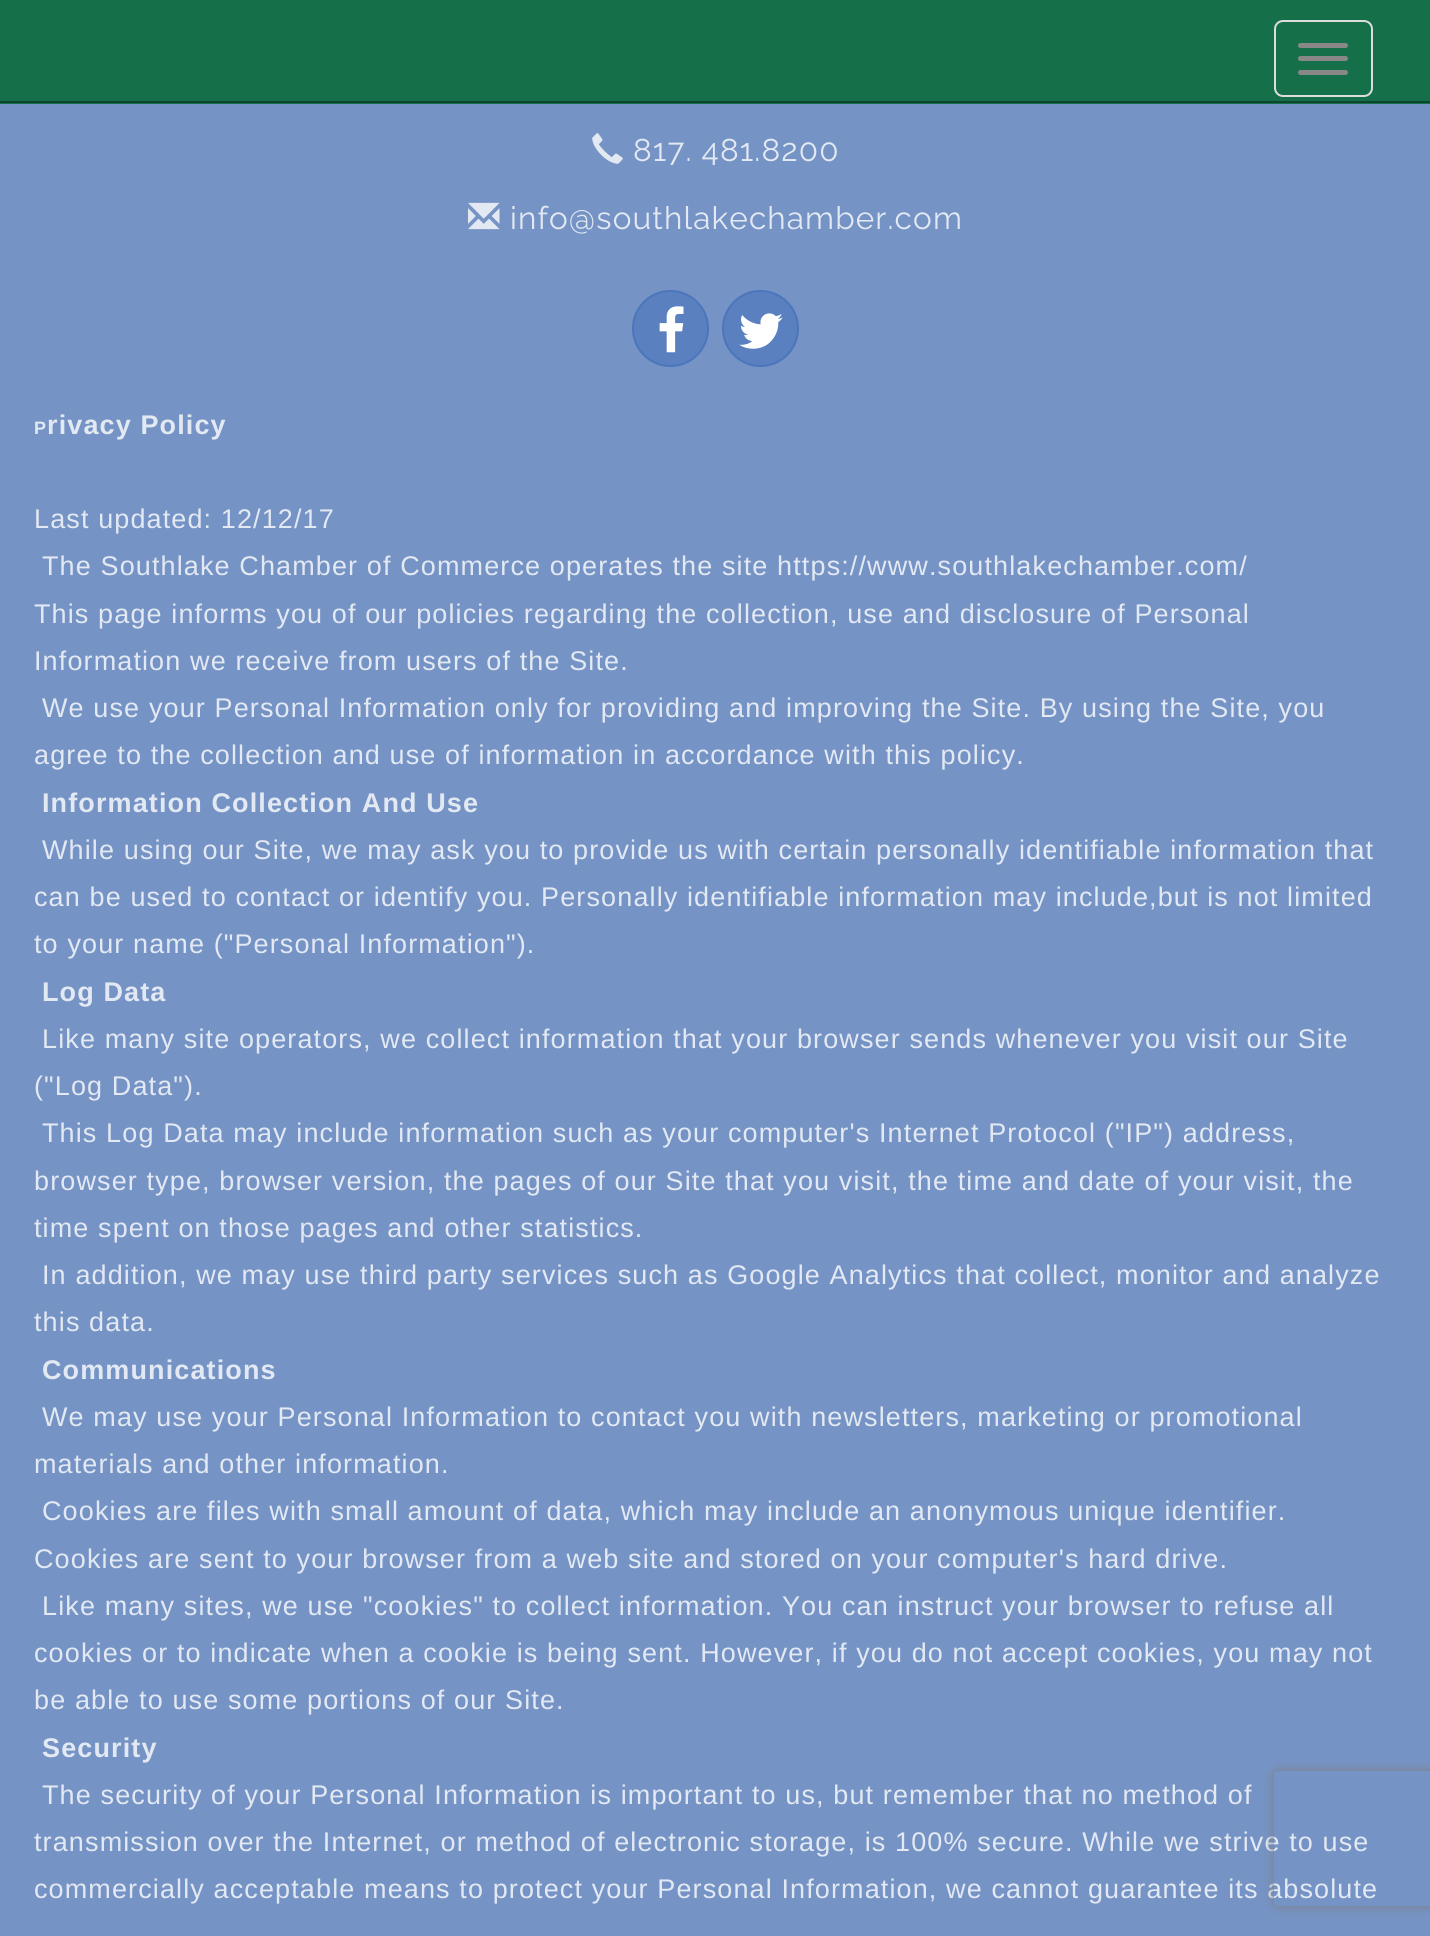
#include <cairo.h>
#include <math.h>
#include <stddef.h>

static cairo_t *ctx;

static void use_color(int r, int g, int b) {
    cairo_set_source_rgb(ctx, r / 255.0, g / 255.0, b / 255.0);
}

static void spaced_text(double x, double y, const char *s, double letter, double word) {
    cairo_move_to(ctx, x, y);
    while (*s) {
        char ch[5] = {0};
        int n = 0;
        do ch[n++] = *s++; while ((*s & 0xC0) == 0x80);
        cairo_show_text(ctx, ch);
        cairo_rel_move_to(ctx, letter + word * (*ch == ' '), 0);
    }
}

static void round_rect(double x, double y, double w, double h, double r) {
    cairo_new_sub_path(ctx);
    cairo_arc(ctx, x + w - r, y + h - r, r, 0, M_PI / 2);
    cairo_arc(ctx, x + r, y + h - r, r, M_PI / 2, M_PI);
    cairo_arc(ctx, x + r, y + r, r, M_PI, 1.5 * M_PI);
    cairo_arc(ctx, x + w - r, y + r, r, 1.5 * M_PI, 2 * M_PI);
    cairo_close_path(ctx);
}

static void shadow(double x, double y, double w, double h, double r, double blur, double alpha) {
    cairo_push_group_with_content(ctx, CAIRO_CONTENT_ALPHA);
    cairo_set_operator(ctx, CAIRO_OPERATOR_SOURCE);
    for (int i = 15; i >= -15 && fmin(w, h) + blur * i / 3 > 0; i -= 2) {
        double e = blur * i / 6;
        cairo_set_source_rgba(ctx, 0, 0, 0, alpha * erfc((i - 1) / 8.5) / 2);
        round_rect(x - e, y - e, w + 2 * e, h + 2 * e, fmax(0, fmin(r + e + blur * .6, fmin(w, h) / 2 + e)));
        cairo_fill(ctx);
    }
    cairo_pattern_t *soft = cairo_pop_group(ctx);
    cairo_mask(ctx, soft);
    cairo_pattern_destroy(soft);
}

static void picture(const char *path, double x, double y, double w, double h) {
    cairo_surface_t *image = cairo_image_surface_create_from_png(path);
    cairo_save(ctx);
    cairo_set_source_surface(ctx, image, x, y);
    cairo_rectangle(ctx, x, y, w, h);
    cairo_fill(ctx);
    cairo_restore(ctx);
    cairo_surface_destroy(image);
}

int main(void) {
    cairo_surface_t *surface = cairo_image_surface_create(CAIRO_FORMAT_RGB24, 1430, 1936);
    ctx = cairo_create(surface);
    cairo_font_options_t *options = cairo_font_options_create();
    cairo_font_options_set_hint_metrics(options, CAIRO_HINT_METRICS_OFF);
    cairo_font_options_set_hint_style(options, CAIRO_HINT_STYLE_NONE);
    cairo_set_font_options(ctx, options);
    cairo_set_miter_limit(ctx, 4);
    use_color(117, 147, 197);
    cairo_paint(ctx);
    use_color(21, 112, 74);
    cairo_rectangle(ctx, 0, 0, 1430, 104);
    cairo_fill(ctx);
    use_color(13, 69, 46);
    cairo_rectangle(ctx, 0, 101, 1430, 2);
    cairo_fill(ctx);
    round_rect(1275, 21, 97, 75, 8);
    use_color(221, 221, 221);
    cairo_stroke(ctx);
    use_color(136, 136, 136);
    round_rect(1298, 43, 50, 5, 2.5);
    cairo_fill(ctx);
    round_rect(1298, 56, 50, 5, 2.5);
    cairo_fill(ctx);
    round_rect(1298, 70, 50, 5, 2.5);
    cairo_fill(ctx);
    picture("img1.png", 592, 133, 31, 31);
    cairo_select_font_face(ctx, "Raleway", CAIRO_FONT_SLANT_NORMAL, CAIRO_FONT_WEIGHT_NORMAL);
    cairo_set_font_size(ctx, 31.5);
    use_color(227, 233, 243);
    spaced_text(633, 161, "817. 481.8200", 1.12, 0);
    picture("img2.png", 468, 202, 32, 28);
    spaced_text(510, 229, "info@southlakechamber.com", 1.12, 0);
    use_color(90, 128, 191);
    cairo_new_path(ctx);
    cairo_arc(ctx, 670.5, 328.5, 38.5, 0, 2 * M_PI);
    cairo_fill(ctx);
    cairo_arc(ctx, 670.5, 328.5, 37.5, 0, 2 * M_PI);
    cairo_set_source_rgba(ctx, 0.251, 0.427, 0.725, 0.51);
    cairo_stroke(ctx);
    picture("img3.png", 659, 306, 25, 47);
    use_color(90, 128, 191);
    cairo_arc(ctx, 760.5, 328.5, 38.5, 0, 2 * M_PI);
    cairo_fill(ctx);
    cairo_arc(ctx, 760.5, 328.5, 37.5, 0, 2 * M_PI);
    cairo_set_source_rgba(ctx, 0.251, 0.427, 0.725, 0.51);
    cairo_stroke(ctx);
    picture("img4.png", 739, 313, 44, 36);
    cairo_select_font_face(ctx, "Liberation Sans", CAIRO_FONT_SLANT_NORMAL, CAIRO_FONT_WEIGHT_BOLD);
    cairo_set_font_size(ctx, 18);
    use_color(227, 233, 243);
    spaced_text(34, 434, "P", 1.12, 0);
    cairo_set_font_size(ctx, 27);
    spaced_text(47, 434, "rivacy Policy", 1.12, 0);
    cairo_select_font_face(ctx, "Liberation Sans", CAIRO_FONT_SLANT_NORMAL, CAIRO_FONT_WEIGHT_NORMAL);
    spaced_text(34, 528, "Last updated: 12/12/17", 1.12, 0);
    spaced_text(42, 575, "The Southlake Chamber of Commerce operates the site https://www.southlakechamber.com/", 1.12, 0);
    spaced_text(34, 623, "This page informs you of our policies regarding the collection, use and disclosure of Personal", 1.12, 0);
    spaced_text(34, 670, "Information we receive from users of the Site.", 1.12, 0);
    spaced_text(42, 717, "We use your Personal Information only for providing and improving the Site. By using the Site, you", 1.12, 0);
    spaced_text(34, 764, "agree to the collection and use of information in accordance with this policy.", 1.12, 0);
    cairo_select_font_face(ctx, "Liberation Sans", CAIRO_FONT_SLANT_NORMAL, CAIRO_FONT_WEIGHT_BOLD);
    spaced_text(42, 812, "Information Collection And Use", 1.12, 0);
    cairo_select_font_face(ctx, "Liberation Sans", CAIRO_FONT_SLANT_NORMAL, CAIRO_FONT_WEIGHT_NORMAL);
    spaced_text(42, 859, "While using our Site, we may ask you to provide us with certain personally identifiable information that", 1.12, 0);
    spaced_text(34, 906, "can be used to contact or identify you. Personally identifiable information may include,but is not limited", 1.12, 0);
    spaced_text(34, 953, "to your name (\"Personal Information\").", 1.12, 0);
    cairo_select_font_face(ctx, "Liberation Sans", CAIRO_FONT_SLANT_NORMAL, CAIRO_FONT_WEIGHT_BOLD);
    spaced_text(42, 1001, "Log Data", 1.12, 0);
    cairo_select_font_face(ctx, "Liberation Sans", CAIRO_FONT_SLANT_NORMAL, CAIRO_FONT_WEIGHT_NORMAL);
    spaced_text(42, 1048, "Like many site operators, we collect information that your browser sends whenever you visit our Site", 1.12, 0);
    spaced_text(34, 1095, "(\"Log Data\").", 1.12, 0);
    spaced_text(42, 1142, "This Log Data may include information such as your computer's Internet Protocol (\"IP\") address,", 1.12, 0);
    spaced_text(34, 1190, "browser type, browser version, the pages of our Site that you visit, the time and date of your visit, the", 1.12, 0);
    spaced_text(34, 1237, "time spent on those pages and other statistics.", 1.12, 0);
    spaced_text(42, 1284, "In addition, we may use third party services such as Google Analytics that collect, monitor and analyze", 1.12, 0);
    spaced_text(34, 1331, "this data.", 1.12, 0);
    cairo_select_font_face(ctx, "Liberation Sans", CAIRO_FONT_SLANT_NORMAL, CAIRO_FONT_WEIGHT_BOLD);
    spaced_text(42, 1379, "Communications", 1.12, 0);
    cairo_select_font_face(ctx, "Liberation Sans", CAIRO_FONT_SLANT_NORMAL, CAIRO_FONT_WEIGHT_NORMAL);
    spaced_text(42, 1426, "We may use your Personal Information to contact you with newsletters, marketing or promotional", 1.12, 0);
    spaced_text(34, 1473, "materials and other information.", 1.12, 0);
    spaced_text(42, 1520, "Cookies are files with small amount of data, which may include an anonymous unique identifier.", 1.12, 0);
    spaced_text(34, 1568, "Cookies are sent to your browser from a web site and stored on your computer's hard drive.", 1.12, 0);
    spaced_text(42, 1615, "Like many sites, we use \"cookies\" to collect information. You can instruct your browser to refuse all", 1.12, 0);
    spaced_text(34, 1662, "cookies or to indicate when a cookie is being sent. However, if you do not accept cookies, you may not", 1.12, 0);
    spaced_text(34, 1709, "be able to use some portions of our Site.", 1.12, 0);
    cairo_select_font_face(ctx, "Liberation Sans", CAIRO_FONT_SLANT_NORMAL, CAIRO_FONT_WEIGHT_BOLD);
    spaced_text(42, 1757, "Security", 1.12, 0);
    cairo_select_font_face(ctx, "Liberation Sans", CAIRO_FONT_SLANT_NORMAL, CAIRO_FONT_WEIGHT_NORMAL);
    spaced_text(42, 1804, "The security of your Personal Information is important to us, but remember that no method of", 1.12, 0);
    spaced_text(34, 1851, "transmission over the Internet, or method of electronic storage, is 100% secure. While we strive to use", 1.12, 0);
    spaced_text(34, 1898, "commercially acceptable means to protect your Personal Information, we cannot guarantee its absolute", 1.12, 0);
    cairo_save(ctx);
    cairo_set_fill_rule(ctx, CAIRO_FILL_RULE_EVEN_ODD);
    cairo_new_path(ctx);
    cairo_move_to(ctx, 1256, 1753);
    cairo_line_to(ctx, 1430, 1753);
    cairo_line_to(ctx, 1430, 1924);
    cairo_line_to(ctx, 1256, 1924);
    cairo_close_path(ctx);
    cairo_move_to(ctx, 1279, 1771);
    cairo_line_to(ctx, 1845, 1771);
    cairo_curve_to(ctx, 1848, 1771, 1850, 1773, 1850, 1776);
    cairo_line_to(ctx, 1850, 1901);
    cairo_curve_to(ctx, 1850, 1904, 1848, 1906, 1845, 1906);
    cairo_line_to(ctx, 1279, 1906);
    cairo_curve_to(ctx, 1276, 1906, 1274, 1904, 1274, 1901);
    cairo_line_to(ctx, 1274, 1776);
    cairo_curve_to(ctx, 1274, 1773, 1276, 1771, 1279, 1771);
    cairo_close_path(ctx);
    cairo_clip(ctx);
    use_color(128, 128, 128);
    shadow(1274, 1771, 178, 135, 5, 5.5, 1);
    cairo_restore(ctx);
    cairo_surface_write_to_png(surface, "result.png");
    cairo_font_options_destroy(options);
    cairo_destroy(ctx);
    cairo_surface_destroy(surface);
    return 0;
}
